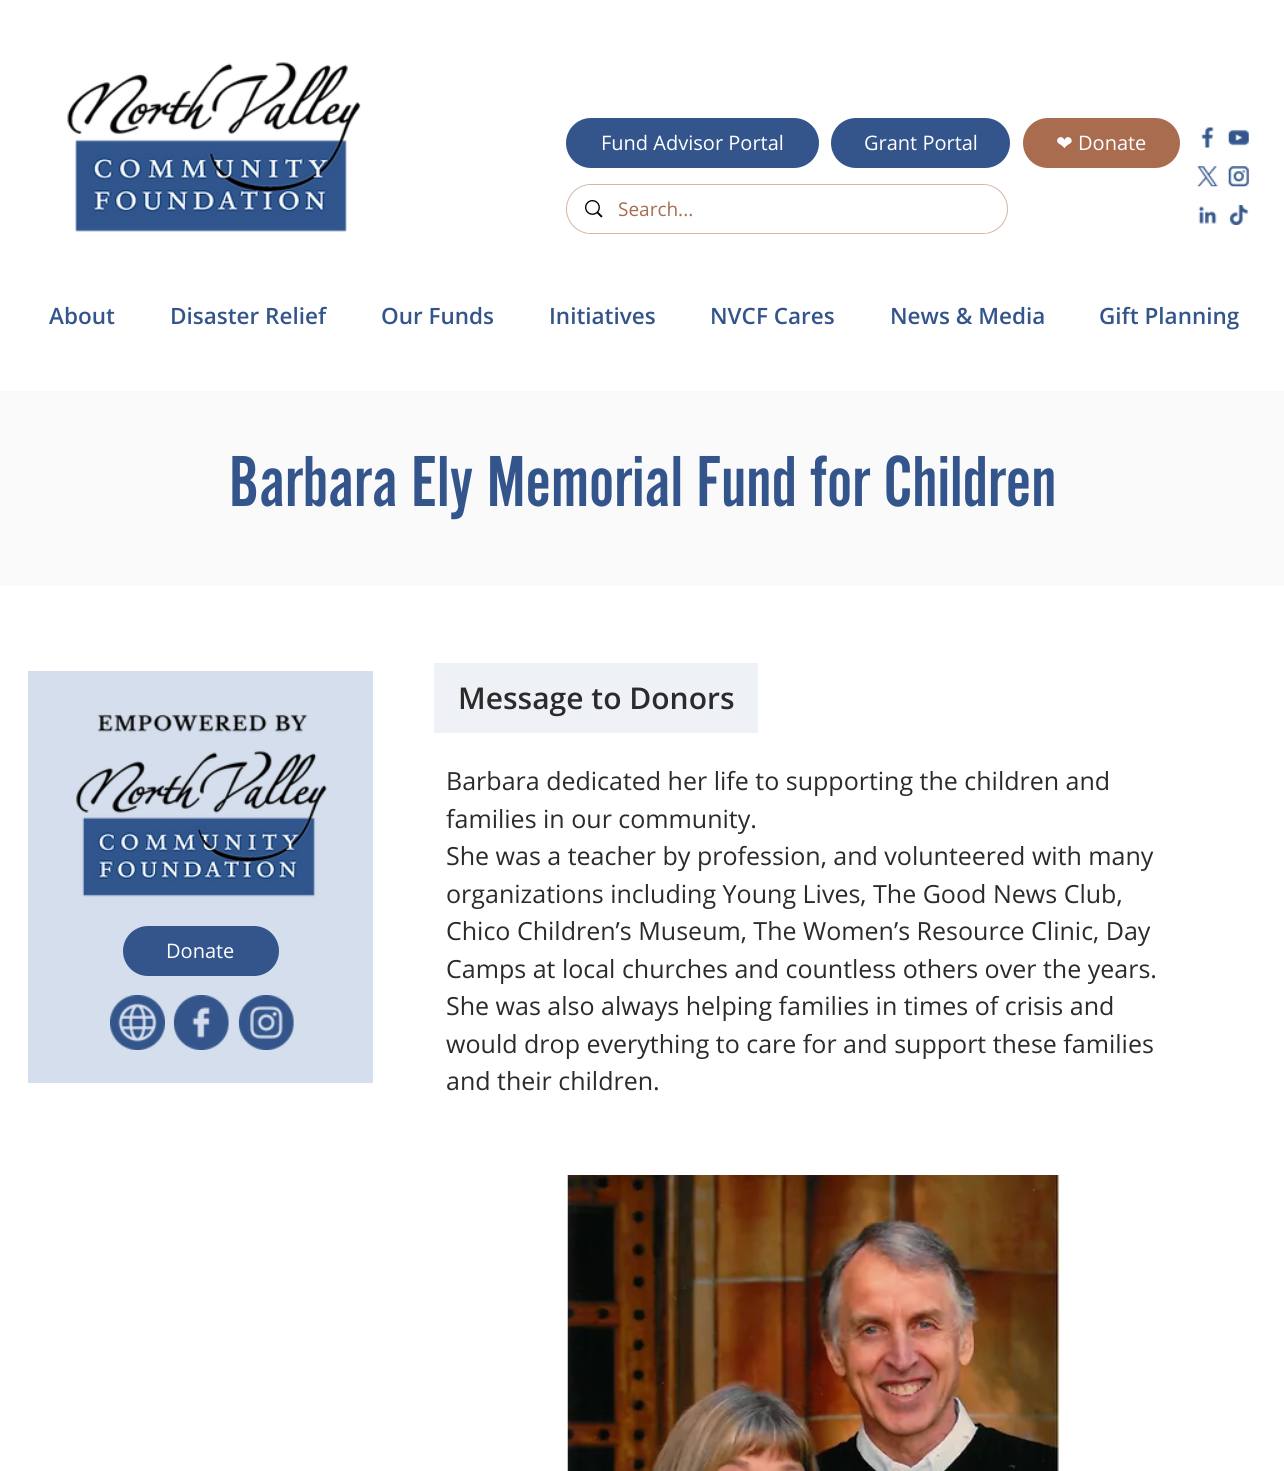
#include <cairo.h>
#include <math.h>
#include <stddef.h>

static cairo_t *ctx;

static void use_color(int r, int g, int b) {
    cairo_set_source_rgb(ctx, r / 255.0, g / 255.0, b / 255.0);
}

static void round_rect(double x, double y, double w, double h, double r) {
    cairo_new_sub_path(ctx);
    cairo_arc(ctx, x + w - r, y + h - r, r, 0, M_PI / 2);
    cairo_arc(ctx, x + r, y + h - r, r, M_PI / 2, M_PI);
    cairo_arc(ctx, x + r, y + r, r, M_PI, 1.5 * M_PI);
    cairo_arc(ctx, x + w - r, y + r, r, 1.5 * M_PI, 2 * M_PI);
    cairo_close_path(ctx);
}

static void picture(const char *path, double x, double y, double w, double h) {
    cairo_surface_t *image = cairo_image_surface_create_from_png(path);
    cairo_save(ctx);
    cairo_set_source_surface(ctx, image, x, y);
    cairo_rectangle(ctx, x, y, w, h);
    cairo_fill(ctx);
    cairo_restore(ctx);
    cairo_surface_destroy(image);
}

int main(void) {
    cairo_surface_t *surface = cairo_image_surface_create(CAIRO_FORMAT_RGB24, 1284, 1471);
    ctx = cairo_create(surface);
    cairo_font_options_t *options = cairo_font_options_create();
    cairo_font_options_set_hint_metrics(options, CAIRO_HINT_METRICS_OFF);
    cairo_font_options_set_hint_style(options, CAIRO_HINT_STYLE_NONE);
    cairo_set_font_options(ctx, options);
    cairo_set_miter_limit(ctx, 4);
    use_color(255, 255, 255);
    cairo_paint(ctx);
    picture("img1.png", 67, 62, 294, 170);
    use_color(51, 85, 139);
    round_rect(566, 118, 253, 50, 25);
    cairo_fill(ctx);
    cairo_select_font_face(ctx, "Open Sans", CAIRO_FONT_SLANT_NORMAL, CAIRO_FONT_WEIGHT_NORMAL);
    cairo_set_font_size(ctx, 20);
    use_color(255, 255, 255);
    cairo_move_to(ctx, 601, 150);
    cairo_show_text(ctx, "Fund Advisor Portal");
    use_color(51, 85, 139);
    round_rect(831, 118, 179, 50, 25);
    cairo_fill(ctx);
    use_color(255, 255, 255);
    cairo_move_to(ctx, 864, 150);
    cairo_show_text(ctx, "Grant Portal");
    use_color(169, 108, 79);
    round_rect(1023, 118, 157, 50, 25);
    cairo_fill(ctx);
    cairo_select_font_face(ctx, "DejaVu Sans", CAIRO_FONT_SLANT_NORMAL, CAIRO_FONT_WEIGHT_NORMAL);
    use_color(255, 255, 255);
    cairo_move_to(ctx, 1056, 150);
    cairo_show_text(ctx, "❤");
    cairo_select_font_face(ctx, "Open Sans", CAIRO_FONT_SLANT_NORMAL, CAIRO_FONT_WEIGHT_NORMAL);
    cairo_move_to(ctx, 1078, 150);
    cairo_show_text(ctx, "Donate");
    picture("img2.png", 1201, 127, 13, 21);
    picture("img3.png", 1197, 166, 21, 21);
    picture("img4.png", 1198, 206, 19, 18);
    picture("img5.png", 1228, 129, 21, 17);
    picture("img6.png", 1228, 166, 21, 21);
    picture("img7.png", 1229, 205, 20, 20);
    round_rect(566.5, 184.5, 441, 49, 24.5);
    use_color(212, 182, 167);
    cairo_set_line_width(ctx, 1);
    cairo_stroke(ctx);
    use_color(255, 255, 255);
    round_rect(568, 185, 438, 48, 24);
    cairo_fill(ctx);
    picture("img8.png", 585, 200, 18, 18);
    cairo_set_font_size(ctx, 19);
    use_color(169, 108, 79);
    cairo_move_to(ctx, 618, 216);
    cairo_show_text(ctx, "Search...");
    cairo_select_font_face(ctx, "Open Sans SemiBold", CAIRO_FONT_SLANT_NORMAL, CAIRO_FONT_WEIGHT_NORMAL);
    cairo_set_font_size(ctx, 22.5);
    use_color(51, 85, 139);
    cairo_move_to(ctx, 49, 324);
    cairo_show_text(ctx, "About");
    cairo_move_to(ctx, 170, 324);
    cairo_show_text(ctx, "Disaster Relief");
    cairo_move_to(ctx, 381, 324);
    cairo_show_text(ctx, "Our Funds");
    cairo_move_to(ctx, 549, 324);
    cairo_show_text(ctx, "Initiatives");
    cairo_move_to(ctx, 710, 324);
    cairo_show_text(ctx, "NVCF Cares");
    cairo_move_to(ctx, 890, 324);
    cairo_show_text(ctx, "News & Media");
    cairo_move_to(ctx, 1099, 324);
    cairo_show_text(ctx, "Gift Planning");
    use_color(250, 250, 250);
    cairo_rectangle(ctx, 0, 391, 1284, 195);
    cairo_fill(ctx);
    cairo_select_font_face(ctx, "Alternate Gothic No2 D", CAIRO_FONT_SLANT_NORMAL, CAIRO_FONT_WEIGHT_NORMAL);
    cairo_set_font_size(ctx, 75);
    use_color(51, 85, 139);
    cairo_move_to(ctx, 229, 506);
    cairo_show_text(ctx, "Barbara Ely Memorial Fund for Children");
    use_color(238, 242, 247);
    cairo_rectangle(ctx, 434, 663, 324, 70);
    cairo_fill(ctx);
    cairo_select_font_face(ctx, "Open Sans SemiBold", CAIRO_FONT_SLANT_NORMAL, CAIRO_FONT_WEIGHT_NORMAL);
    cairo_set_font_size(ctx, 30);
    use_color(43, 43, 43);
    cairo_move_to(ctx, 458, 709);
    cairo_show_text(ctx, "Message to Donors");
    use_color(213, 222, 236);
    cairo_rectangle(ctx, 28, 671, 345, 412);
    cairo_fill(ctx);
    picture("img9.png", 76, 714, 251, 183);
    use_color(51, 85, 139);
    round_rect(123, 926, 156, 50, 25);
    cairo_fill(ctx);
    cairo_select_font_face(ctx, "Open Sans", CAIRO_FONT_SLANT_NORMAL, CAIRO_FONT_WEIGHT_NORMAL);
    cairo_set_font_size(ctx, 20);
    use_color(255, 255, 255);
    cairo_move_to(ctx, 166, 958);
    cairo_show_text(ctx, "Donate");
    picture("img10.png", 110, 995, 55, 55);
    picture("img11.png", 173, 995, 56, 55);
    picture("img12.png", 238, 995, 56, 55);
    cairo_set_font_size(ctx, 25);
    use_color(43, 43, 43);
    cairo_move_to(ctx, 446, 790);
    cairo_show_text(ctx, "Barbara dedicated her life to supporting the children and");
    cairo_move_to(ctx, 446, 828);
    cairo_show_text(ctx, "families in our community.");
    cairo_move_to(ctx, 446, 865);
    cairo_show_text(ctx, "She was a teacher by profession, and volunteered with many");
    cairo_move_to(ctx, 446, 903);
    cairo_show_text(ctx, "organizations including Young Lives, The Good News Club,");
    cairo_move_to(ctx, 446, 940);
    cairo_show_text(ctx, "Chico Children’s Museum, The Women’s Resource Clinic, Day");
    cairo_move_to(ctx, 446, 978);
    cairo_show_text(ctx, "Camps at local churches and countless others over the years.");
    cairo_move_to(ctx, 446, 1015);
    cairo_show_text(ctx, "She was also always helping families in times of crisis and");
    cairo_move_to(ctx, 446, 1053);
    cairo_show_text(ctx, "would drop everything to care for and support these families");
    cairo_move_to(ctx, 446, 1090);
    cairo_show_text(ctx, "and their children.");
    picture("img13.png", 567, 1175, 493, 296);
    cairo_surface_write_to_png(surface, "result.png");
    cairo_font_options_destroy(options);
    cairo_destroy(ctx);
    cairo_surface_destroy(surface);
    return 0;
}
